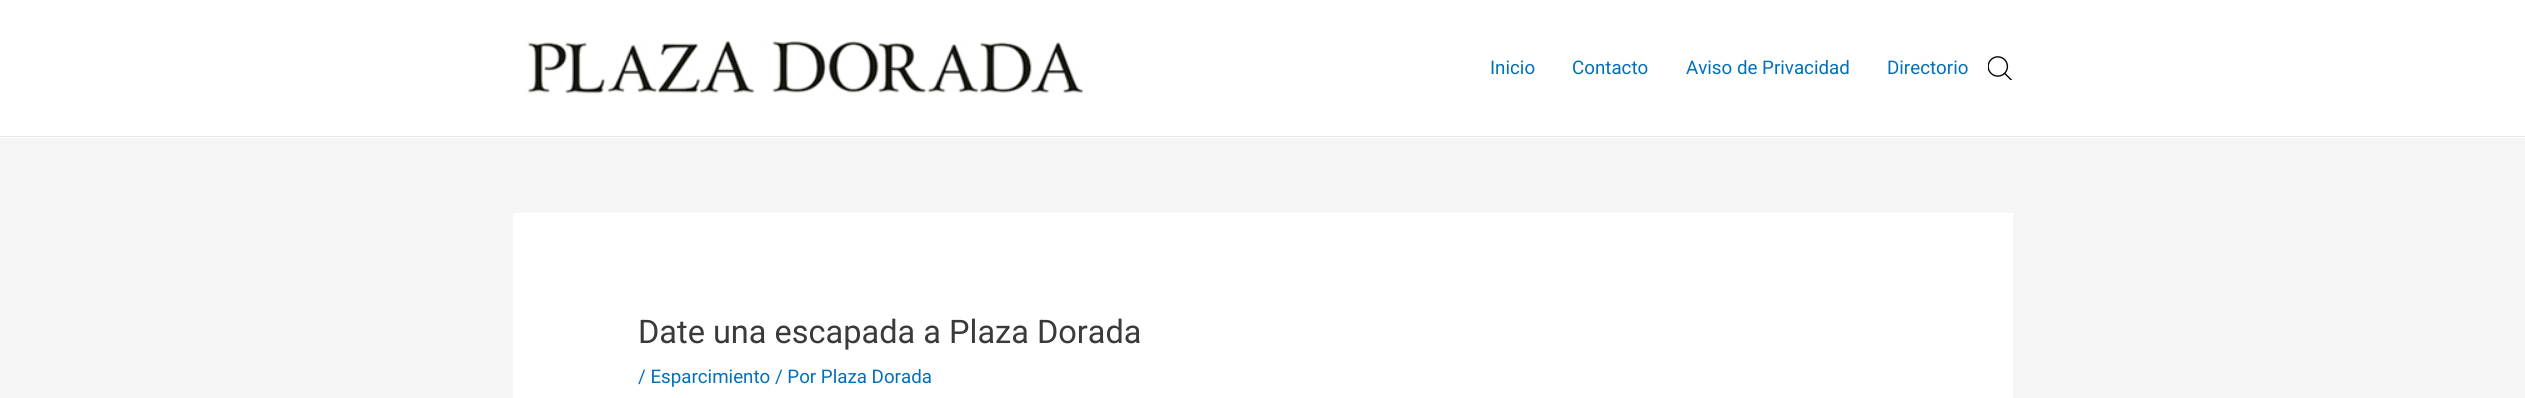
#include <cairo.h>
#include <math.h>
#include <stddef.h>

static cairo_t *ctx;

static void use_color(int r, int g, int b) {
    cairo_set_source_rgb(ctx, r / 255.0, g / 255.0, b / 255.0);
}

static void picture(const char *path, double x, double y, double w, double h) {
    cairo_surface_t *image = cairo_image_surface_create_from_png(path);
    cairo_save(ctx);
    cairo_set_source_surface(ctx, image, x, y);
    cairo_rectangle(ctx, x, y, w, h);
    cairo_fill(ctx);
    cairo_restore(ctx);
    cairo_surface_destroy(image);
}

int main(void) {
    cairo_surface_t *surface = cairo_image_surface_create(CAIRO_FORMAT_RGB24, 2525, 398);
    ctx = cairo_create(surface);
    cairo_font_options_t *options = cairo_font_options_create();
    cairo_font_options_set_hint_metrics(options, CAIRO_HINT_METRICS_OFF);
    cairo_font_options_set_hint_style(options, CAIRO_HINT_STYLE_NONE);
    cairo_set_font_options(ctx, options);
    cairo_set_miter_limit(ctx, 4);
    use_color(245, 245, 245);
    cairo_paint(ctx);
    use_color(255, 255, 255);
    cairo_rectangle(ctx, 0, 0, 2525, 138);
    cairo_fill(ctx);
    use_color(229, 229, 229);
    cairo_rectangle(ctx, 0, 136, 2525, 1);
    cairo_fill(ctx);
    picture("img1.png", 527, 41, 556, 53);
    cairo_select_font_face(ctx, "Roboto", CAIRO_FONT_SLANT_NORMAL, CAIRO_FONT_WEIGHT_NORMAL);
    cairo_set_font_size(ctx, 18.75);
    use_color(1, 112, 185);
    cairo_move_to(ctx, 1490, 74);
    cairo_show_text(ctx, "Inicio");
    cairo_move_to(ctx, 1572, 74);
    cairo_show_text(ctx, "Contacto");
    cairo_move_to(ctx, 1686, 74);
    cairo_show_text(ctx, "Aviso de Privacidad");
    cairo_move_to(ctx, 1887, 74);
    cairo_show_text(ctx, "Directorio");
    picture("img2.png", 1988, 56, 25, 24);
    use_color(255, 255, 255);
    cairo_rectangle(ctx, 513, 213, 1500, 185);
    cairo_fill(ctx);
    cairo_set_font_size(ctx, 32.5);
    use_color(58, 58, 58);
    cairo_move_to(ctx, 638, 343);
    cairo_show_text(ctx, "Date una escapada a Plaza Dorada");
    cairo_set_font_size(ctx, 18.75);
    use_color(1, 112, 185);
    cairo_move_to(ctx, 638, 383);
    cairo_show_text(ctx, "/ Esparcimiento / Por Plaza Dorada");
    cairo_surface_write_to_png(surface, "result.png");
    cairo_font_options_destroy(options);
    cairo_destroy(ctx);
    cairo_surface_destroy(surface);
    return 0;
}
